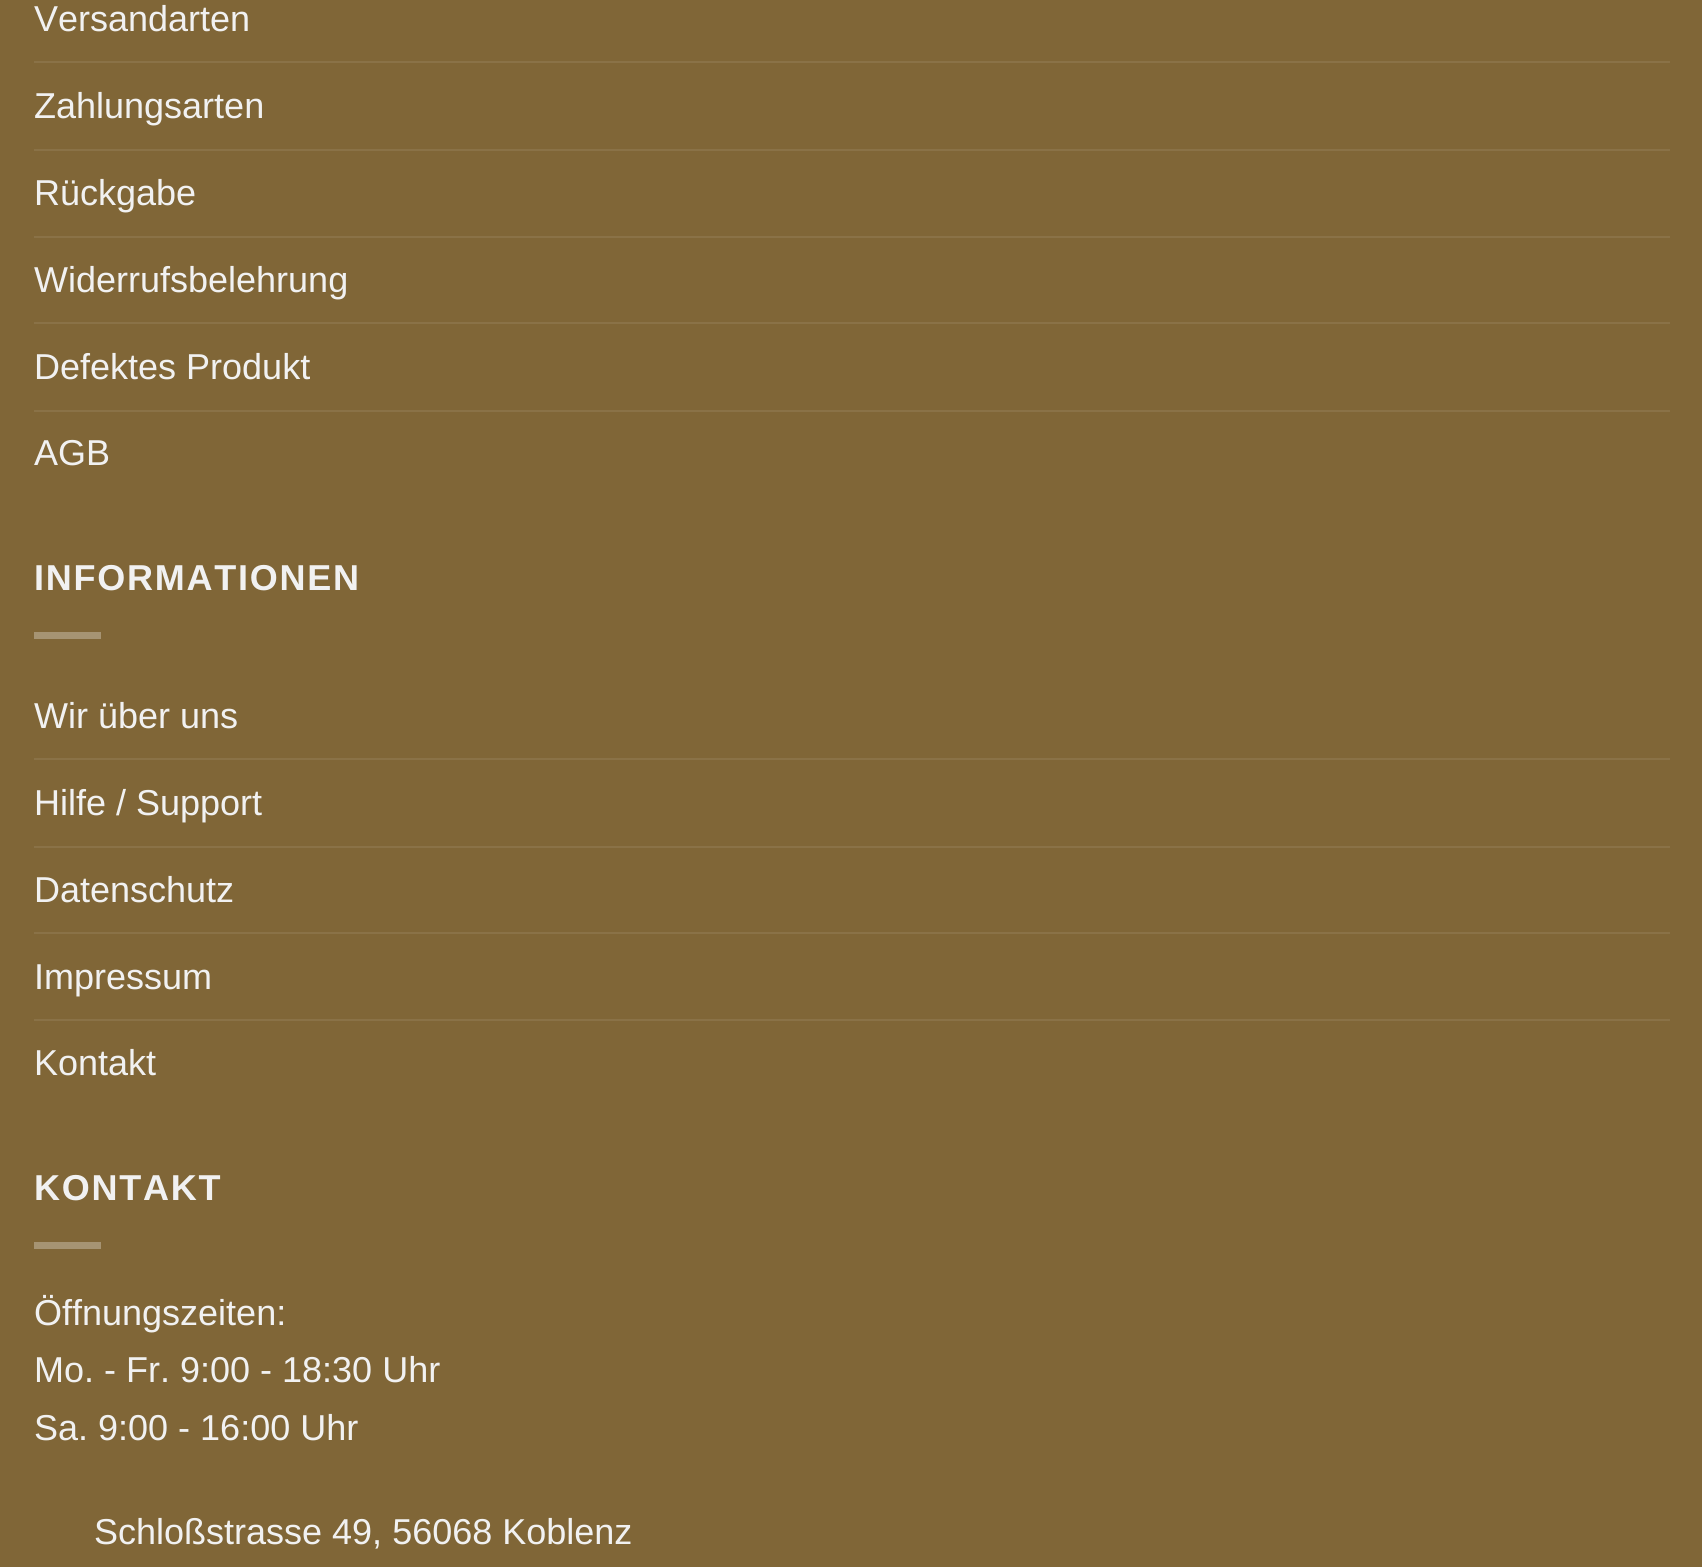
#include <cairo.h>
#include <math.h>
#include <stddef.h>

static cairo_t *ctx;

static void use_color(int r, int g, int b) {
    cairo_set_source_rgb(ctx, r / 255.0, g / 255.0, b / 255.0);
}

static void spaced_text(double x, double y, const char *s, double letter, double word) {
    cairo_move_to(ctx, x, y);
    while (*s) {
        char ch[5] = {0};
        int n = 0;
        do ch[n++] = *s++; while ((*s & 0xC0) == 0x80);
        cairo_show_text(ctx, ch);
        cairo_rel_move_to(ctx, letter + word * (*ch == ' '), 0);
    }
}

int main(void) {
    cairo_surface_t *surface = cairo_image_surface_create(CAIRO_FORMAT_RGB24, 1702, 1567);
    ctx = cairo_create(surface);
    cairo_font_options_t *options = cairo_font_options_create();
    cairo_font_options_set_hint_metrics(options, CAIRO_HINT_METRICS_OFF);
    cairo_font_options_set_hint_style(options, CAIRO_HINT_STYLE_NONE);
    cairo_set_font_options(ctx, options);
    cairo_set_miter_limit(ctx, 4);
    use_color(128, 102, 55);
    cairo_paint(ctx);
    cairo_select_font_face(ctx, "Liberation Sans", CAIRO_FONT_SLANT_NORMAL, CAIRO_FONT_WEIGHT_NORMAL);
    cairo_set_font_size(ctx, 36);
    use_color(241, 241, 241);
    cairo_move_to(ctx, 34, 31);
    cairo_show_text(ctx, "Versandarten");
    use_color(138, 114, 71);
    cairo_rectangle(ctx, 34, 61, 1636, 2);
    cairo_fill(ctx);
    use_color(241, 241, 241);
    cairo_move_to(ctx, 34, 118);
    cairo_show_text(ctx, "Zahlungsarten");
    use_color(138, 114, 71);
    cairo_rectangle(ctx, 34, 149, 1636, 2);
    cairo_fill(ctx);
    use_color(241, 241, 241);
    cairo_move_to(ctx, 34, 205);
    cairo_show_text(ctx, "Rückgabe");
    use_color(138, 114, 71);
    cairo_rectangle(ctx, 34, 236, 1636, 2);
    cairo_fill(ctx);
    use_color(241, 241, 241);
    cairo_move_to(ctx, 34, 292);
    cairo_show_text(ctx, "Widerrufsbelehrung");
    use_color(138, 114, 71);
    cairo_rectangle(ctx, 34, 322, 1636, 2);
    cairo_fill(ctx);
    use_color(241, 241, 241);
    cairo_move_to(ctx, 34, 379);
    cairo_show_text(ctx, "Defektes Produkt");
    use_color(138, 114, 71);
    cairo_rectangle(ctx, 34, 410, 1636, 2);
    cairo_fill(ctx);
    use_color(241, 241, 241);
    cairo_move_to(ctx, 34, 465);
    cairo_show_text(ctx, "AGB");
    cairo_select_font_face(ctx, "Liberation Sans", CAIRO_FONT_SLANT_NORMAL, CAIRO_FONT_WEIGHT_BOLD);
    spaced_text(34, 590, "INFORMATIONEN", 1.75, 0);
    use_color(166, 148, 115);
    cairo_rectangle(ctx, 34, 632, 67, 7);
    cairo_fill(ctx);
    cairo_select_font_face(ctx, "Liberation Sans", CAIRO_FONT_SLANT_NORMAL, CAIRO_FONT_WEIGHT_NORMAL);
    use_color(241, 241, 241);
    cairo_move_to(ctx, 34, 728);
    cairo_show_text(ctx, "Wir über uns");
    use_color(138, 114, 71);
    cairo_rectangle(ctx, 34, 758, 1636, 2);
    cairo_fill(ctx);
    use_color(241, 241, 241);
    cairo_move_to(ctx, 34, 815);
    cairo_show_text(ctx, "Hilfe / Support");
    use_color(138, 114, 71);
    cairo_rectangle(ctx, 34, 846, 1636, 2);
    cairo_fill(ctx);
    use_color(241, 241, 241);
    cairo_move_to(ctx, 34, 902);
    cairo_show_text(ctx, "Datenschutz");
    use_color(138, 114, 71);
    cairo_rectangle(ctx, 34, 932, 1636, 2);
    cairo_fill(ctx);
    use_color(241, 241, 241);
    cairo_move_to(ctx, 34, 989);
    cairo_show_text(ctx, "Impressum");
    use_color(138, 114, 71);
    cairo_rectangle(ctx, 34, 1019, 1636, 2);
    cairo_fill(ctx);
    use_color(241, 241, 241);
    cairo_move_to(ctx, 34, 1075);
    cairo_show_text(ctx, "Kontakt");
    cairo_select_font_face(ctx, "Liberation Sans", CAIRO_FONT_SLANT_NORMAL, CAIRO_FONT_WEIGHT_BOLD);
    spaced_text(34, 1200, "KONTAKT", 1.75, 0);
    use_color(166, 148, 115);
    cairo_rectangle(ctx, 34, 1242, 67, 7);
    cairo_fill(ctx);
    cairo_select_font_face(ctx, "Liberation Sans", CAIRO_FONT_SLANT_NORMAL, CAIRO_FONT_WEIGHT_NORMAL);
    use_color(241, 241, 241);
    cairo_move_to(ctx, 34, 1325);
    cairo_show_text(ctx, "Öffnungszeiten:");
    cairo_move_to(ctx, 34, 1382);
    cairo_show_text(ctx, "Mo. - Fr. 9:00 - 18:30 Uhr");
    cairo_move_to(ctx, 34, 1440);
    cairo_show_text(ctx, "Sa. 9:00 - 16:00 Uhr");
    cairo_move_to(ctx, 94, 1544);
    cairo_show_text(ctx, "Schloßstrasse 49, 56068 Koblenz");
    cairo_surface_write_to_png(surface, "result.png");
    cairo_font_options_destroy(options);
    cairo_destroy(ctx);
    cairo_surface_destroy(surface);
    return 0;
}
